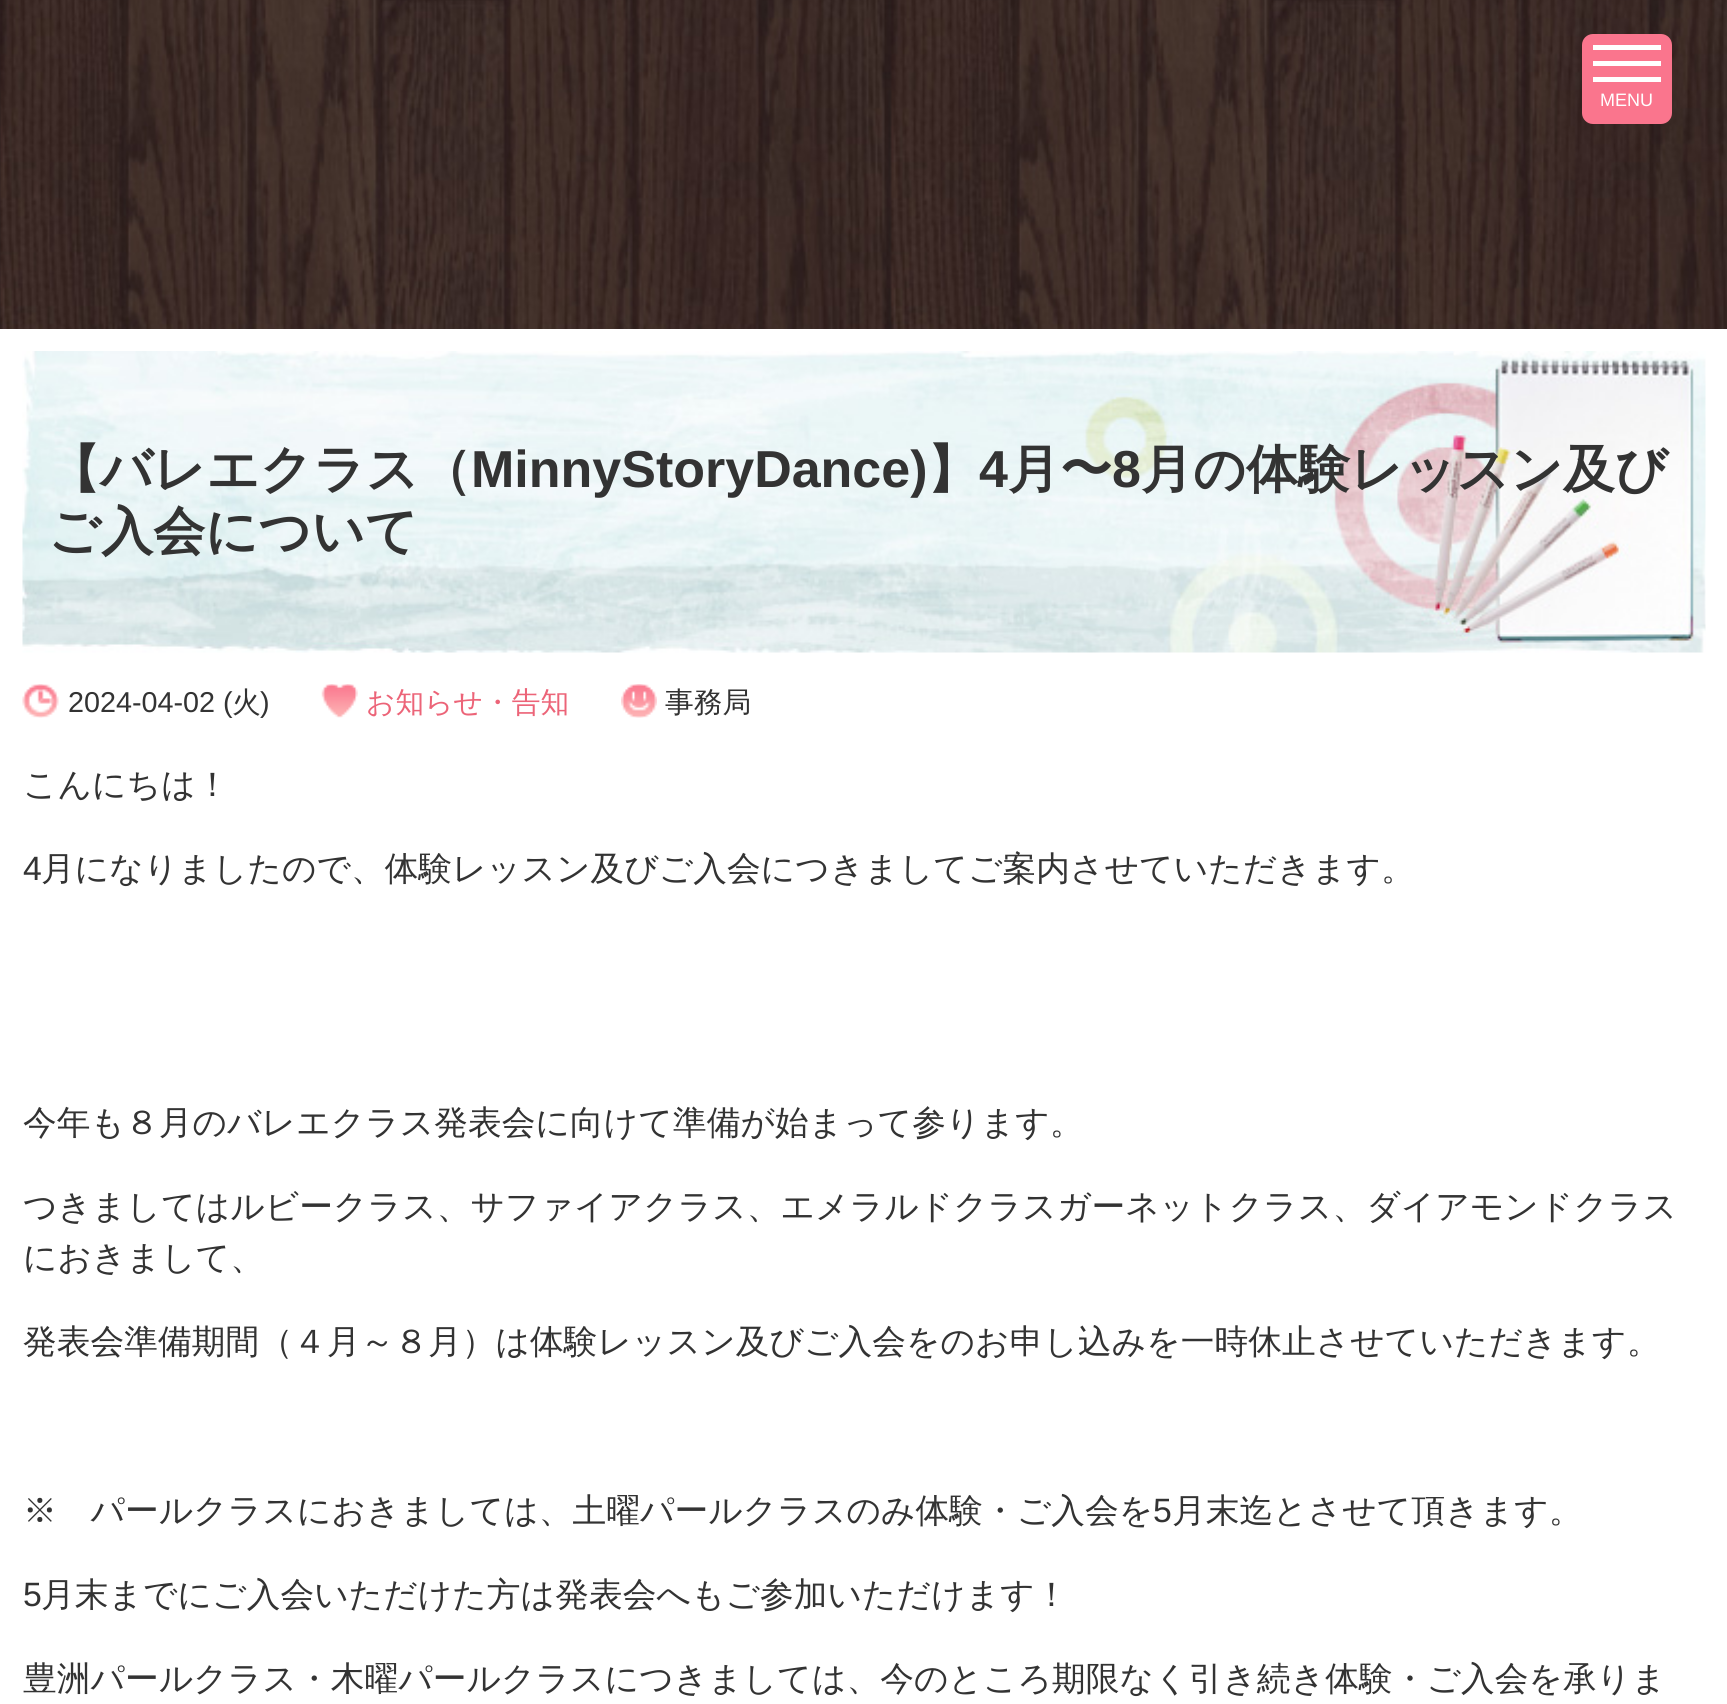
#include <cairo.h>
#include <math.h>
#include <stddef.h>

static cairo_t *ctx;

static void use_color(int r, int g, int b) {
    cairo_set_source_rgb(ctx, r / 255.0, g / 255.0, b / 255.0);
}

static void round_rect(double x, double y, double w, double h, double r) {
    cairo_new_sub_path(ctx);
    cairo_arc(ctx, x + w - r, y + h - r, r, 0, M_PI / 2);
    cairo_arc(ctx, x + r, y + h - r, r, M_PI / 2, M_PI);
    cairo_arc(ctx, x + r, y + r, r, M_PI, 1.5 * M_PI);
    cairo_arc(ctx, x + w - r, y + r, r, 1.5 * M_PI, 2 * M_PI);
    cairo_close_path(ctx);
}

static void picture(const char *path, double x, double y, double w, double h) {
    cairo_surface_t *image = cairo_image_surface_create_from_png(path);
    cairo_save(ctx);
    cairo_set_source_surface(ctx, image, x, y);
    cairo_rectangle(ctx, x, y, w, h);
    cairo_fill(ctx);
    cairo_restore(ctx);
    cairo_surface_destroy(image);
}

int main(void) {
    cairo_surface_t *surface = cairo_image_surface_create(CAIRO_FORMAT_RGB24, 1727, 1704);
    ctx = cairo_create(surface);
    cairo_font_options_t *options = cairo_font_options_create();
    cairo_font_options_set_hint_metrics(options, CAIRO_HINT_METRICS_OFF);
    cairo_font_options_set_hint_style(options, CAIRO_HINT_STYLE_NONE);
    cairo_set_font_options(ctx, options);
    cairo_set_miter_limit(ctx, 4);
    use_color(255, 255, 255);
    cairo_paint(ctx);
    picture("img1.png", 0, 0, 1727, 329);
    use_color(250, 117, 141);
    round_rect(1582, 34, 90, 90, 11);
    cairo_fill(ctx);
    use_color(255, 255, 255);
    cairo_rectangle(ctx, 1593, 45, 68, 5);
    cairo_fill(ctx);
    cairo_rectangle(ctx, 1593, 61, 68, 5);
    cairo_fill(ctx);
    cairo_rectangle(ctx, 1593, 77, 68, 5);
    cairo_fill(ctx);
    cairo_select_font_face(ctx, "Liberation Sans", CAIRO_FONT_SLANT_NORMAL, CAIRO_FONT_WEIGHT_NORMAL);
    cairo_set_font_size(ctx, 18);
    cairo_move_to(ctx, 1600, 106);
    cairo_show_text(ctx, "MENU");
    picture("img2.png", 22, 351, 1684, 302);
    cairo_select_font_face(ctx, "WenQuanYi Zen Hei", CAIRO_FONT_SLANT_NORMAL, CAIRO_FONT_WEIGHT_BOLD);
    cairo_set_font_size(ctx, 52);
    use_color(51, 51, 51);
    cairo_move_to(ctx, 48, 487);
    cairo_show_text(ctx, "【バレエクラス（");
    cairo_select_font_face(ctx, "Liberation Sans", CAIRO_FONT_SLANT_NORMAL, CAIRO_FONT_WEIGHT_BOLD);
    cairo_move_to(ctx, 471, 487);
    cairo_show_text(ctx, "MinnyStoryDance)");
    cairo_select_font_face(ctx, "WenQuanYi Zen Hei", CAIRO_FONT_SLANT_NORMAL, CAIRO_FONT_WEIGHT_BOLD);
    cairo_move_to(ctx, 927, 487);
    cairo_show_text(ctx, "】");
    cairo_select_font_face(ctx, "Liberation Sans", CAIRO_FONT_SLANT_NORMAL, CAIRO_FONT_WEIGHT_BOLD);
    cairo_move_to(ctx, 979, 487);
    cairo_show_text(ctx, "4");
    cairo_select_font_face(ctx, "WenQuanYi Zen Hei", CAIRO_FONT_SLANT_NORMAL, CAIRO_FONT_WEIGHT_BOLD);
    cairo_move_to(ctx, 1008, 487);
    cairo_show_text(ctx, "月〜");
    cairo_select_font_face(ctx, "Liberation Sans", CAIRO_FONT_SLANT_NORMAL, CAIRO_FONT_WEIGHT_BOLD);
    cairo_move_to(ctx, 1112, 487);
    cairo_show_text(ctx, "8");
    cairo_select_font_face(ctx, "WenQuanYi Zen Hei", CAIRO_FONT_SLANT_NORMAL, CAIRO_FONT_WEIGHT_BOLD);
    cairo_move_to(ctx, 1141, 487);
    cairo_show_text(ctx, "月の体験レッスン及び");
    cairo_move_to(ctx, 48, 549);
    cairo_show_text(ctx, "ご入会について");
    picture("img3.png", 22, 684, 37, 34);
    cairo_select_font_face(ctx, "Liberation Sans", CAIRO_FONT_SLANT_NORMAL, CAIRO_FONT_WEIGHT_NORMAL);
    cairo_set_font_size(ctx, 28.75);
    cairo_move_to(ctx, 68, 712);
    cairo_show_text(ctx, "2024-04-02 (");
    cairo_select_font_face(ctx, "WenQuanYi Zen Hei Medium", CAIRO_FONT_SLANT_NORMAL, CAIRO_FONT_WEIGHT_NORMAL);
    cairo_move_to(ctx, 232, 712);
    cairo_show_text(ctx, "火");
    cairo_select_font_face(ctx, "Liberation Sans", CAIRO_FONT_SLANT_NORMAL, CAIRO_FONT_WEIGHT_NORMAL);
    cairo_move_to(ctx, 260, 712);
    cairo_show_text(ctx, ")");
    picture("img4.png", 321, 684, 37, 34);
    cairo_select_font_face(ctx, "WenQuanYi Zen Hei Medium", CAIRO_FONT_SLANT_NORMAL, CAIRO_FONT_WEIGHT_NORMAL);
    use_color(236, 100, 120);
    cairo_move_to(ctx, 366, 712);
    cairo_show_text(ctx, "お知らせ・告知");
    picture("img5.png", 621, 684, 36, 34);
    use_color(51, 51, 51);
    cairo_move_to(ctx, 665, 712);
    cairo_show_text(ctx, "事務局");
    cairo_set_font_size(ctx, 33.75);
    cairo_move_to(ctx, 23, 796);
    cairo_show_text(ctx, "こんにちは！");
    cairo_select_font_face(ctx, "Liberation Sans", CAIRO_FONT_SLANT_NORMAL, CAIRO_FONT_WEIGHT_NORMAL);
    cairo_move_to(ctx, 23, 880);
    cairo_show_text(ctx, "4");
    cairo_select_font_face(ctx, "WenQuanYi Zen Hei Medium", CAIRO_FONT_SLANT_NORMAL, CAIRO_FONT_WEIGHT_NORMAL);
    cairo_move_to(ctx, 41, 880);
    cairo_show_text(ctx, "月になりましたので、体験レッスン及びご入会につきましてご案内させていただきます。");
    cairo_move_to(ctx, 23, 1134);
    cairo_show_text(ctx, "今年も８月のバレエクラス発表会に向けて準備が始まって参ります。");
    cairo_move_to(ctx, 23, 1218);
    cairo_show_text(ctx, "つきましてはルビークラス、サファイアクラス、エメラルドクラスガーネットクラス、ダイアモンドクラス");
    cairo_move_to(ctx, 23, 1269);
    cairo_show_text(ctx, "におきまして、");
    cairo_move_to(ctx, 23, 1353);
    cairo_show_text(ctx, "発表会準備期間（４月～８月）は体験レッスン及びご入会をのお申し込みを一時休止させていただきます。");
    cairo_move_to(ctx, 23, 1522);
    cairo_show_text(ctx, "※　パールクラスにおきましては、土曜パールクラスのみ体験・ご入会を");
    cairo_select_font_face(ctx, "Liberation Sans", CAIRO_FONT_SLANT_NORMAL, CAIRO_FONT_WEIGHT_NORMAL);
    cairo_move_to(ctx, 1153, 1522);
    cairo_show_text(ctx, "5");
    cairo_select_font_face(ctx, "WenQuanYi Zen Hei Medium", CAIRO_FONT_SLANT_NORMAL, CAIRO_FONT_WEIGHT_NORMAL);
    cairo_move_to(ctx, 1172, 1522);
    cairo_show_text(ctx, "月末迄とさせて頂きます。");
    cairo_select_font_face(ctx, "Liberation Sans", CAIRO_FONT_SLANT_NORMAL, CAIRO_FONT_WEIGHT_NORMAL);
    cairo_move_to(ctx, 23, 1606);
    cairo_show_text(ctx, "5");
    cairo_select_font_face(ctx, "WenQuanYi Zen Hei Medium", CAIRO_FONT_SLANT_NORMAL, CAIRO_FONT_WEIGHT_NORMAL);
    cairo_move_to(ctx, 41, 1606);
    cairo_show_text(ctx, "月末までにご入会いただけた方は発表会へもご参加いただけます！");
    cairo_move_to(ctx, 23, 1690);
    cairo_show_text(ctx, "豊洲パールクラス・木曜パールクラスにつきましては、今のところ期限なく引き続き体験・ご入会を承りま");
    cairo_surface_write_to_png(surface, "result.png");
    cairo_font_options_destroy(options);
    cairo_destroy(ctx);
    cairo_surface_destroy(surface);
    return 0;
}
